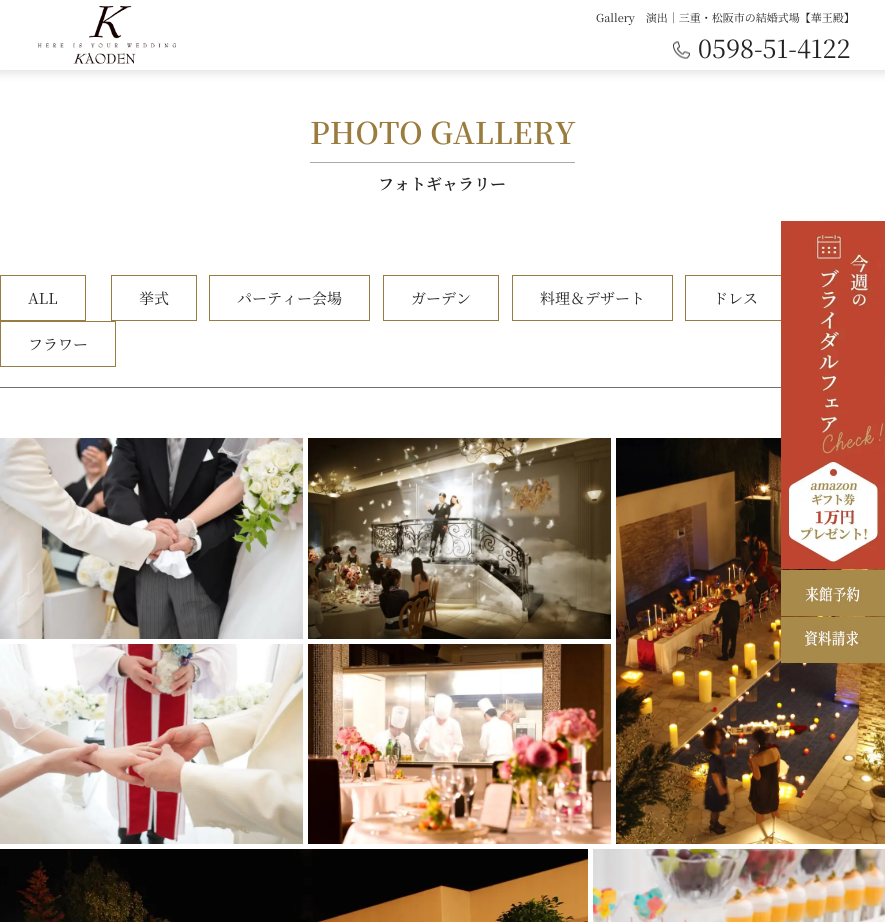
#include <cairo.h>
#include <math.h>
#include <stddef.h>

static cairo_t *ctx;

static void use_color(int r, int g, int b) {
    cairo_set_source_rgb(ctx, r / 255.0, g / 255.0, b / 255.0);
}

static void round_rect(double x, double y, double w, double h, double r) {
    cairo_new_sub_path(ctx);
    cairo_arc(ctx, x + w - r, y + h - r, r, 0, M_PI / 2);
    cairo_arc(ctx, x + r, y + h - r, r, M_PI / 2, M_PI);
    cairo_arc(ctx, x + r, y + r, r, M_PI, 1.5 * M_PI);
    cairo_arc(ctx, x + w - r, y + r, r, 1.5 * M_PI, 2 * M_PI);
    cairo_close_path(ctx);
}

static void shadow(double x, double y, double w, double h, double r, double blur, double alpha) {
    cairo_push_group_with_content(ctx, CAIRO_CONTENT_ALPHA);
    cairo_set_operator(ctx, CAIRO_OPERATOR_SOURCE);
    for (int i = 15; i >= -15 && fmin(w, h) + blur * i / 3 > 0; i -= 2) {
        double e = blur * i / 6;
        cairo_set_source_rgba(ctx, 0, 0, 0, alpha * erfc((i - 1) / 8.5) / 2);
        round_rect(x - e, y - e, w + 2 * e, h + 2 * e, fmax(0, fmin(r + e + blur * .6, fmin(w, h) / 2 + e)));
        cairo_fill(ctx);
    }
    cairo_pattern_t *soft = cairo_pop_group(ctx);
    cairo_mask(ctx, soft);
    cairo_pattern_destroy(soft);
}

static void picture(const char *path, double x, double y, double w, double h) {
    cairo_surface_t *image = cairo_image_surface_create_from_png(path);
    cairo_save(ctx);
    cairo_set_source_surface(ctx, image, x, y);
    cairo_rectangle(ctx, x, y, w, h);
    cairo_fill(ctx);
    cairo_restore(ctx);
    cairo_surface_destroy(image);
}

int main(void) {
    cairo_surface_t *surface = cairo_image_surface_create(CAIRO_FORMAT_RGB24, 885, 922);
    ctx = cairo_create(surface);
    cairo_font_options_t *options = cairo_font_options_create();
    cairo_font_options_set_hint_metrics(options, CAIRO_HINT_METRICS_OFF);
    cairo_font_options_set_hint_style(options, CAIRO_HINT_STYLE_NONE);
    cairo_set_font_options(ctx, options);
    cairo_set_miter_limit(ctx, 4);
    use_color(255, 255, 255);
    cairo_paint(ctx);
    cairo_save(ctx);
    cairo_rectangle(ctx, 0, 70, 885, 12);
    cairo_clip(ctx);
    use_color(221, 221, 221);
    shadow(-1, 0, 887, 72, 0, 5, 1);
    cairo_restore(ctx);
    picture("img1.png", 38, 6, 138, 58);
    cairo_select_font_face(ctx, "Noto Serif JP", CAIRO_FONT_SLANT_NORMAL, CAIRO_FONT_WEIGHT_NORMAL);
    cairo_set_font_size(ctx, 11);
    use_color(34, 34, 34);
    cairo_move_to(ctx, 596, 22);
    cairo_show_text(ctx, "Gallery　演出｜三重・松阪市の結婚式場【華王殿】");
    picture("img2.png", 673, 41, 17, 18);
    cairo_set_font_size(ctx, 25);
    cairo_move_to(ctx, 698, 58);
    cairo_show_text(ctx, "0598-51-4122");
    use_color(170, 170, 170);
    cairo_rectangle(ctx, 310, 162, 265, 1);
    cairo_fill(ctx);
    cairo_select_font_face(ctx, "Noto Serif JP SemiBold", CAIRO_FONT_SLANT_NORMAL, CAIRO_FONT_WEIGHT_NORMAL);
    cairo_set_font_size(ctx, 30);
    use_color(155, 124, 63);
    cairo_move_to(ctx, 310, 144);
    cairo_show_text(ctx, "PHOTO GALLERY");
    cairo_set_font_size(ctx, 16);
    use_color(34, 34, 34);
    cairo_move_to(ctx, 378, 190);
    cairo_show_text(ctx, "フォトギャラリー");
    use_color(112, 112, 112);
    cairo_rectangle(ctx, 0, 387, 781, 1);
    cairo_fill(ctx);
    cairo_rectangle(ctx, 0.5, 275.5, 85, 45);
    use_color(153, 124, 67);
    cairo_set_line_width(ctx, 1);
    cairo_stroke(ctx);
    cairo_select_font_face(ctx, "Noto Serif JP", CAIRO_FONT_SLANT_NORMAL, CAIRO_FONT_WEIGHT_NORMAL);
    cairo_set_font_size(ctx, 15);
    use_color(34, 34, 34);
    cairo_move_to(ctx, 28, 304);
    cairo_show_text(ctx, "ALL");
    cairo_rectangle(ctx, 111.5, 275.5, 85, 45);
    use_color(153, 124, 67);
    cairo_stroke(ctx);
    use_color(34, 34, 34);
    cairo_move_to(ctx, 139, 304);
    cairo_show_text(ctx, "挙式");
    cairo_rectangle(ctx, 209.5, 275.5, 160, 45);
    use_color(153, 124, 67);
    cairo_stroke(ctx);
    use_color(34, 34, 34);
    cairo_move_to(ctx, 237, 304);
    cairo_show_text(ctx, "パーティー会場");
    cairo_rectangle(ctx, 383.5, 275.5, 115, 45);
    use_color(153, 124, 67);
    cairo_stroke(ctx);
    use_color(34, 34, 34);
    cairo_move_to(ctx, 411, 304);
    cairo_show_text(ctx, "ガーデン");
    cairo_rectangle(ctx, 512.5, 275.5, 160, 45);
    use_color(153, 124, 67);
    cairo_stroke(ctx);
    use_color(34, 34, 34);
    cairo_move_to(ctx, 540, 304);
    cairo_show_text(ctx, "料理＆デザート");
    cairo_rectangle(ctx, 685.5, 275.5, 100, 45);
    use_color(153, 124, 67);
    cairo_stroke(ctx);
    use_color(34, 34, 34);
    cairo_move_to(ctx, 713, 304);
    cairo_show_text(ctx, "ドレス");
    cairo_rectangle(ctx, 0.5, 321.5, 115, 45);
    use_color(153, 124, 67);
    cairo_stroke(ctx);
    use_color(34, 34, 34);
    cairo_move_to(ctx, 28, 350);
    cairo_show_text(ctx, "フラワー");
    picture("img3.png", 0, 438, 303, 201);
    picture("img4.png", 308, 438, 303, 201);
    picture("img5.png", 616, 438, 269, 406);
    picture("img6.png", 0, 644, 303, 200);
    picture("img7.png", 308, 644, 303, 200);
    picture("img8.png", 0, 849, 588, 73);
    picture("img9.png", 593, 849, 292, 73);
    picture("img10.png", 781, 221, 104, 348);
    picture("img11.png", 781, 570, 104, 46);
    picture("img12.png", 781, 617, 104, 46);
    cairo_surface_write_to_png(surface, "result.png");
    cairo_font_options_destroy(options);
    cairo_destroy(ctx);
    cairo_surface_destroy(surface);
    return 0;
}
